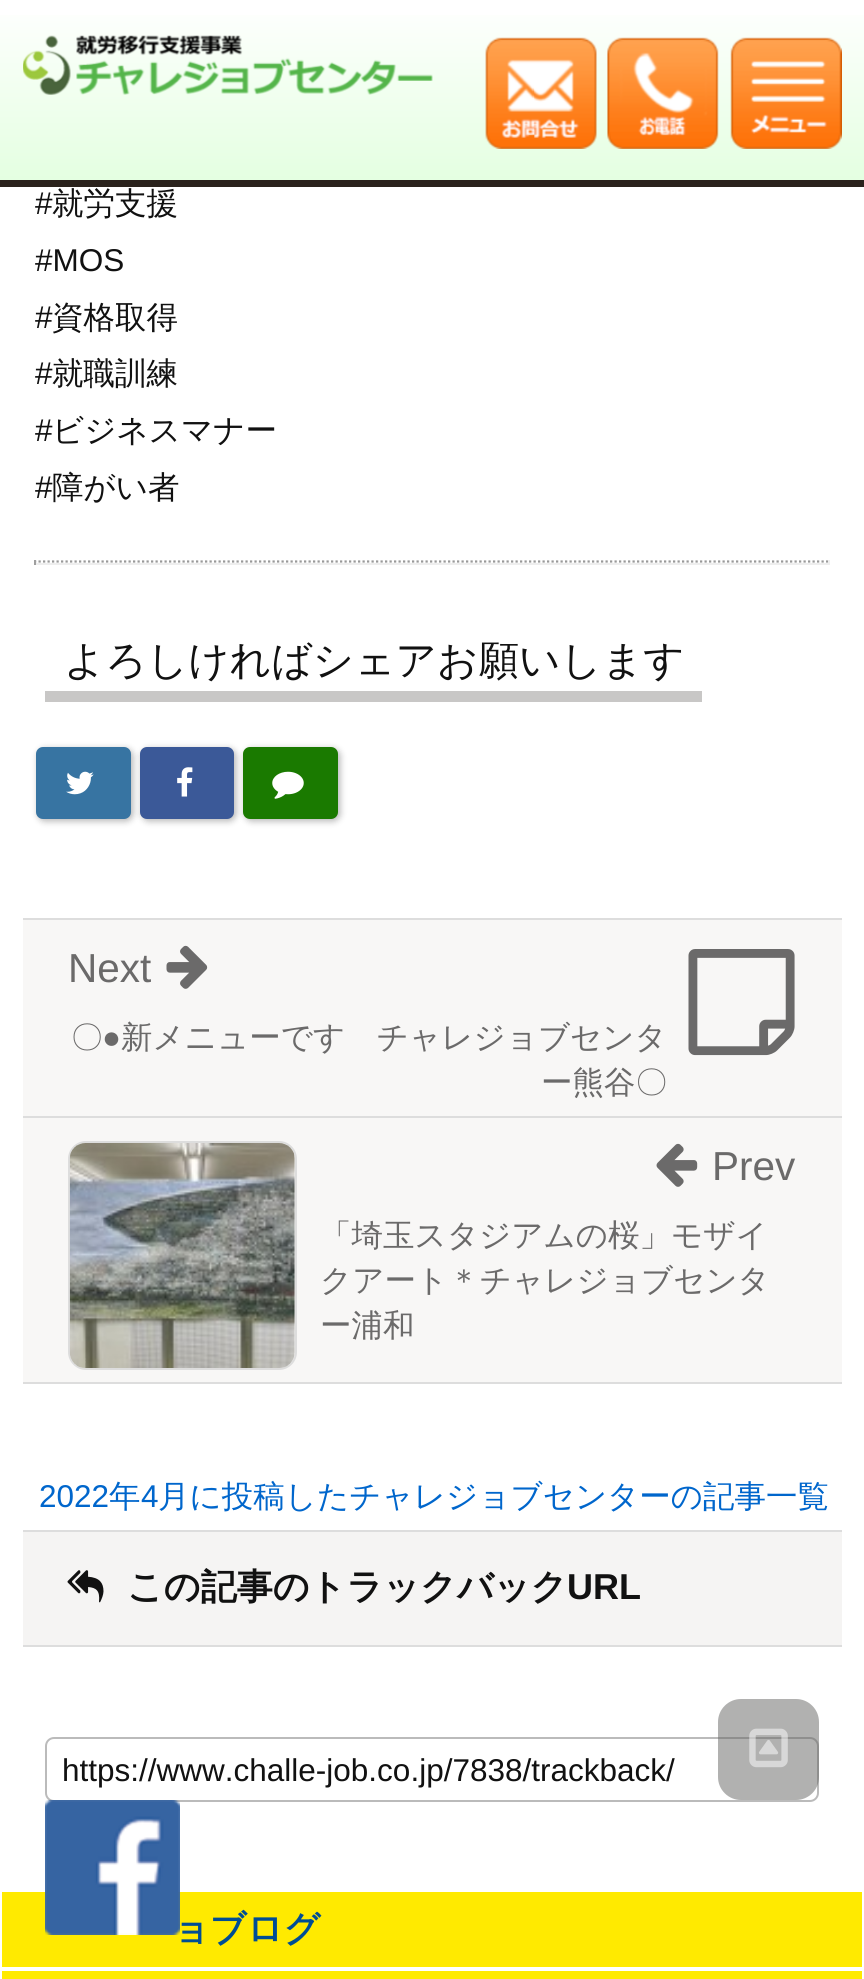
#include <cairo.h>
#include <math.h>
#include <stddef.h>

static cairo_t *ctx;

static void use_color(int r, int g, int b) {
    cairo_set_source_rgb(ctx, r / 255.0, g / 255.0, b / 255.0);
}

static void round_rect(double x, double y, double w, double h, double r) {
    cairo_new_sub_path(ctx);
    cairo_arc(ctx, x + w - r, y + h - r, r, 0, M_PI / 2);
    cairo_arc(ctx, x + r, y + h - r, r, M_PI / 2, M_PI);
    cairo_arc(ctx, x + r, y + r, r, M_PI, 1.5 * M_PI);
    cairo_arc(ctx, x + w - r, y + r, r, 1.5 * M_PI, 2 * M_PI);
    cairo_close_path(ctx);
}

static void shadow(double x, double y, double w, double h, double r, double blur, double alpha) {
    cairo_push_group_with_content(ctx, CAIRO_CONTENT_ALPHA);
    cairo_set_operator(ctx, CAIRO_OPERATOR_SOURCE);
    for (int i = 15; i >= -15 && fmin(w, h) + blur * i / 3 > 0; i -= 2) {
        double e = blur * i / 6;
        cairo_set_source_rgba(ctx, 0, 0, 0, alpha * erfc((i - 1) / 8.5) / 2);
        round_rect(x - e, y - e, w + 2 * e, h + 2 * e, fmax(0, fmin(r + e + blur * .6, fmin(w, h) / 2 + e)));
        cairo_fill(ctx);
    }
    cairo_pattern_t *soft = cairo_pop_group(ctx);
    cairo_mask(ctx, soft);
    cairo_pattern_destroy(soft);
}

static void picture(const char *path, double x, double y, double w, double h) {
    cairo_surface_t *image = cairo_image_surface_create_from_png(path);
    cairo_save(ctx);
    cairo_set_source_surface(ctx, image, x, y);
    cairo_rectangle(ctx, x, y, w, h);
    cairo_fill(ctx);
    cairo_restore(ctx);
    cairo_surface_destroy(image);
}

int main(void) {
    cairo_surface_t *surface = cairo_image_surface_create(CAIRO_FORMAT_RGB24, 864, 1979);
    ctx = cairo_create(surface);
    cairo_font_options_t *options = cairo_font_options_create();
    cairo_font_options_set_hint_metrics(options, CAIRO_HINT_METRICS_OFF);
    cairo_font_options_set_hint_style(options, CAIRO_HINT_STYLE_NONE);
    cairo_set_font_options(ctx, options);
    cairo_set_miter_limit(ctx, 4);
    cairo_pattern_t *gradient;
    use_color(255, 255, 255);
    cairo_paint(ctx);
    gradient = cairo_pattern_create_linear(432, 0, 432, 180);
    cairo_pattern_add_color_stop_rgba(gradient, 0, 1, 1, 1, 1);
    cairo_pattern_add_color_stop_rgba(gradient, 1, 0.894, 1, 0.882, 1);
    cairo_set_source(ctx, gradient);
    cairo_pattern_destroy(gradient);
    cairo_rectangle(ctx, 0, 15, 864, 165);
    cairo_fill(ctx);
    use_color(42, 34, 28);
    cairo_rectangle(ctx, 0, 180, 864, 7);
    cairo_fill(ctx);
    picture("img1.png", 23, 35, 410, 60);
    picture("img2.png", 485, 37, 112, 112);
    picture("img3.png", 607, 37, 112, 112);
    picture("img4.png", 730, 37, 112, 112);
    round_rect(46, 1738, 772, 63, 8);
    use_color(187, 187, 187);
    cairo_stroke(ctx);
    use_color(255, 234, 0);
    cairo_rectangle(ctx, 2, 1892, 860, 75);
    cairo_fill(ctx);
    picture("img5.png", 45, 1800, 135, 135);
    cairo_select_font_face(ctx, "Liberation Sans", CAIRO_FONT_SLANT_NORMAL, CAIRO_FONT_WEIGHT_NORMAL);
    cairo_set_font_size(ctx, 31.5);
    use_color(17, 17, 17);
    cairo_move_to(ctx, 35, 214);
    cairo_show_text(ctx, "#");
    cairo_select_font_face(ctx, "WenQuanYi Zen Hei Medium", CAIRO_FONT_SLANT_NORMAL, CAIRO_FONT_WEIGHT_NORMAL);
    cairo_move_to(ctx, 52, 214);
    cairo_show_text(ctx, "就労支援");
    cairo_select_font_face(ctx, "Liberation Sans", CAIRO_FONT_SLANT_NORMAL, CAIRO_FONT_WEIGHT_NORMAL);
    cairo_move_to(ctx, 35, 271);
    cairo_show_text(ctx, "#MOS");
    cairo_move_to(ctx, 35, 328);
    cairo_show_text(ctx, "#");
    cairo_select_font_face(ctx, "WenQuanYi Zen Hei Medium", CAIRO_FONT_SLANT_NORMAL, CAIRO_FONT_WEIGHT_NORMAL);
    cairo_move_to(ctx, 52, 328);
    cairo_show_text(ctx, "資格取得");
    cairo_select_font_face(ctx, "Liberation Sans", CAIRO_FONT_SLANT_NORMAL, CAIRO_FONT_WEIGHT_NORMAL);
    cairo_move_to(ctx, 35, 384);
    cairo_show_text(ctx, "#");
    cairo_select_font_face(ctx, "WenQuanYi Zen Hei Medium", CAIRO_FONT_SLANT_NORMAL, CAIRO_FONT_WEIGHT_NORMAL);
    cairo_move_to(ctx, 52, 384);
    cairo_show_text(ctx, "就職訓練");
    cairo_select_font_face(ctx, "Liberation Sans", CAIRO_FONT_SLANT_NORMAL, CAIRO_FONT_WEIGHT_NORMAL);
    cairo_move_to(ctx, 35, 441);
    cairo_show_text(ctx, "#");
    cairo_select_font_face(ctx, "WenQuanYi Zen Hei Medium", CAIRO_FONT_SLANT_NORMAL, CAIRO_FONT_WEIGHT_NORMAL);
    cairo_move_to(ctx, 52, 441);
    cairo_show_text(ctx, "ビジネスマナー");
    cairo_select_font_face(ctx, "Liberation Sans", CAIRO_FONT_SLANT_NORMAL, CAIRO_FONT_WEIGHT_NORMAL);
    cairo_move_to(ctx, 35, 498);
    cairo_show_text(ctx, "#");
    cairo_select_font_face(ctx, "WenQuanYi Zen Hei Medium", CAIRO_FONT_SLANT_NORMAL, CAIRO_FONT_WEIGHT_NORMAL);
    cairo_move_to(ctx, 52, 498);
    cairo_show_text(ctx, "障がい者");
    cairo_new_path(ctx);
    cairo_move_to(ctx, 34, 561.5);
    cairo_line_to(ctx, 830, 561.5);
    use_color(153, 153, 153);
    cairo_set_line_width(ctx, 2.2);
    cairo_set_dash(ctx, (double[]){2.25, 2.25}, 2, 0);
    cairo_stroke(ctx);
    use_color(238, 238, 238);
    cairo_rectangle(ctx, 828, 560, 2, 5);
    cairo_fill(ctx);
    cairo_rectangle(ctx, 34, 563, 796, 2);
    cairo_fill(ctx);
    use_color(159, 159, 159);
    cairo_rectangle(ctx, 34, 560, 2, 5);
    cairo_fill(ctx);
    use_color(200, 199, 198);
    cairo_rectangle(ctx, 45, 691, 657, 11);
    cairo_fill(ctx);
    cairo_set_font_size(ctx, 40.5);
    use_color(17, 17, 17);
    cairo_move_to(ctx, 64, 674);
    cairo_show_text(ctx, "よろしければシェアお願いします");
    use_color(0, 0, 0);
    shadow(38, 749, 95, 72, 7, 3.5, 0.3);
    use_color(55, 116, 162);
    round_rect(36, 747, 95, 72, 7);
    cairo_fill(ctx);
    picture("img6.png", 66, 771, 28, 24);
    use_color(0, 0, 0);
    shadow(142, 749, 94, 72, 7, 3.5, 0.3);
    use_color(59, 89, 152);
    round_rect(140, 747, 94, 72, 7);
    cairo_fill(ctx);
    picture("img7.png", 177, 767, 16, 30);
    use_color(0, 0, 0);
    shadow(245, 749, 95, 72, 7, 3.5, 0.3);
    use_color(26, 122, 0);
    round_rect(243, 747, 95, 72, 7);
    cairo_fill(ctx);
    picture("img8.png", 272, 771, 32, 28);
    use_color(221, 221, 221);
    cairo_rectangle(ctx, 23, 918, 819, 2);
    cairo_fill(ctx);
    cairo_rectangle(ctx, 23, 1116, 819, 2);
    cairo_fill(ctx);
    use_color(248, 247, 246);
    cairo_rectangle(ctx, 23, 920, 819, 196);
    cairo_fill(ctx);
    cairo_select_font_face(ctx, "Liberation Sans", CAIRO_FONT_SLANT_NORMAL, CAIRO_FONT_WEIGHT_NORMAL);
    use_color(107, 106, 106);
    cairo_move_to(ctx, 68, 982);
    cairo_show_text(ctx, "Next");
    picture("img9.png", 166, 945, 42, 44);
    picture("img10.png", 688, 949, 107, 107);
    cairo_select_font_face(ctx, "WenQuanYi Zen Hei Medium", CAIRO_FONT_SLANT_NORMAL, CAIRO_FONT_WEIGHT_NORMAL);
    cairo_set_font_size(ctx, 31.5);
    cairo_move_to(ctx, 71, 1048);
    cairo_show_text(ctx, "〇");
    cairo_select_font_face(ctx, "Liberation Sans", CAIRO_FONT_SLANT_NORMAL, CAIRO_FONT_WEIGHT_NORMAL);
    cairo_move_to(ctx, 102, 1048);
    cairo_show_text(ctx, "●");
    cairo_select_font_face(ctx, "WenQuanYi Zen Hei Medium", CAIRO_FONT_SLANT_NORMAL, CAIRO_FONT_WEIGHT_NORMAL);
    cairo_move_to(ctx, 121, 1048);
    cairo_show_text(ctx, "新メニューです　チャレジョブセンタ");
    cairo_move_to(ctx, 541, 1093);
    cairo_show_text(ctx, "ー熊谷〇");
    use_color(221, 221, 221);
    cairo_rectangle(ctx, 23, 1382, 819, 2);
    cairo_fill(ctx);
    use_color(248, 247, 246);
    cairo_rectangle(ctx, 23, 1118, 819, 264);
    cairo_fill(ctx);
    round_rect(69, 1142, 227, 227, 17);
    use_color(221, 221, 221);
    cairo_set_line_width(ctx, 2);
    cairo_set_dash(ctx, NULL, 0, 0);
    cairo_stroke(ctx);
    picture("img11.png", 69, 1143, 226, 225);
    picture("img12.png", 656, 1143, 42, 44);
    cairo_select_font_face(ctx, "Liberation Sans", CAIRO_FONT_SLANT_NORMAL, CAIRO_FONT_WEIGHT_NORMAL);
    cairo_set_font_size(ctx, 40.5);
    use_color(107, 106, 106);
    cairo_move_to(ctx, 712, 1180);
    cairo_show_text(ctx, "Prev");
    cairo_select_font_face(ctx, "WenQuanYi Zen Hei Medium", CAIRO_FONT_SLANT_NORMAL, CAIRO_FONT_WEIGHT_NORMAL);
    cairo_set_font_size(ctx, 31.5);
    cairo_move_to(ctx, 320, 1246);
    cairo_show_text(ctx, "「埼玉スタジアムの桜」モザイ");
    cairo_move_to(ctx, 320, 1291);
    cairo_show_text(ctx, "クアート＊チャレジョブセンタ");
    cairo_move_to(ctx, 320, 1336);
    cairo_show_text(ctx, "ー浦和");
    cairo_select_font_face(ctx, "Liberation Sans", CAIRO_FONT_SLANT_NORMAL, CAIRO_FONT_WEIGHT_NORMAL);
    use_color(0, 102, 204);
    cairo_move_to(ctx, 39, 1507);
    cairo_show_text(ctx, "2022");
    cairo_select_font_face(ctx, "WenQuanYi Zen Hei Medium", CAIRO_FONT_SLANT_NORMAL, CAIRO_FONT_WEIGHT_NORMAL);
    cairo_move_to(ctx, 109, 1507);
    cairo_show_text(ctx, "年");
    cairo_select_font_face(ctx, "Liberation Sans", CAIRO_FONT_SLANT_NORMAL, CAIRO_FONT_WEIGHT_NORMAL);
    cairo_move_to(ctx, 141, 1507);
    cairo_show_text(ctx, "4");
    cairo_select_font_face(ctx, "WenQuanYi Zen Hei Medium", CAIRO_FONT_SLANT_NORMAL, CAIRO_FONT_WEIGHT_NORMAL);
    cairo_move_to(ctx, 158, 1507);
    cairo_show_text(ctx, "月に投稿したチャレジョブセンターの記事一覧");
    use_color(245, 244, 243);
    cairo_rectangle(ctx, 23, 1532, 819, 113);
    cairo_fill(ctx);
    use_color(221, 221, 221);
    cairo_rectangle(ctx, 23, 1530, 819, 2);
    cairo_fill(ctx);
    cairo_rectangle(ctx, 23, 1645, 819, 2);
    cairo_fill(ctx);
    picture("img13.png", 67, 1570, 37, 33);
    cairo_select_font_face(ctx, "WenQuanYi Zen Hei", CAIRO_FONT_SLANT_NORMAL, CAIRO_FONT_WEIGHT_BOLD);
    cairo_set_font_size(ctx, 36);
    use_color(17, 17, 17);
    cairo_move_to(ctx, 127, 1599);
    cairo_show_text(ctx, "この記事のトラックバック");
    cairo_select_font_face(ctx, "Liberation Sans", CAIRO_FONT_SLANT_NORMAL, CAIRO_FONT_WEIGHT_BOLD);
    cairo_move_to(ctx, 567, 1599);
    cairo_show_text(ctx, "URL");
    cairo_select_font_face(ctx, "Liberation Sans", CAIRO_FONT_SLANT_NORMAL, CAIRO_FONT_WEIGHT_NORMAL);
    cairo_set_font_size(ctx, 31.5);
    cairo_move_to(ctx, 62, 1781);
    cairo_show_text(ctx, "https://www.challe-job.co.jp/7838/trackback/");
    cairo_select_font_face(ctx, "WenQuanYi Zen Hei", CAIRO_FONT_SLANT_NORMAL, CAIRO_FONT_WEIGHT_BOLD);
    cairo_set_font_size(ctx, 36);
    use_color(0, 77, 148);
    cairo_move_to(ctx, 173, 1941);
    cairo_show_text(ctx, "ョブログ");
    use_color(255, 234, 0);
    cairo_rectangle(ctx, 2, 1971, 860, 8);
    cairo_fill(ctx);
    cairo_set_source_rgba(ctx, 0.396, 0.392, 0.388, 0.5);
    round_rect(718, 1699, 101, 101, 23);
    cairo_fill(ctx);
    picture("img14.png", 749, 1728, 39, 40);
    cairo_surface_write_to_png(surface, "result.png");
    cairo_font_options_destroy(options);
    cairo_destroy(ctx);
    cairo_surface_destroy(surface);
    return 0;
}
